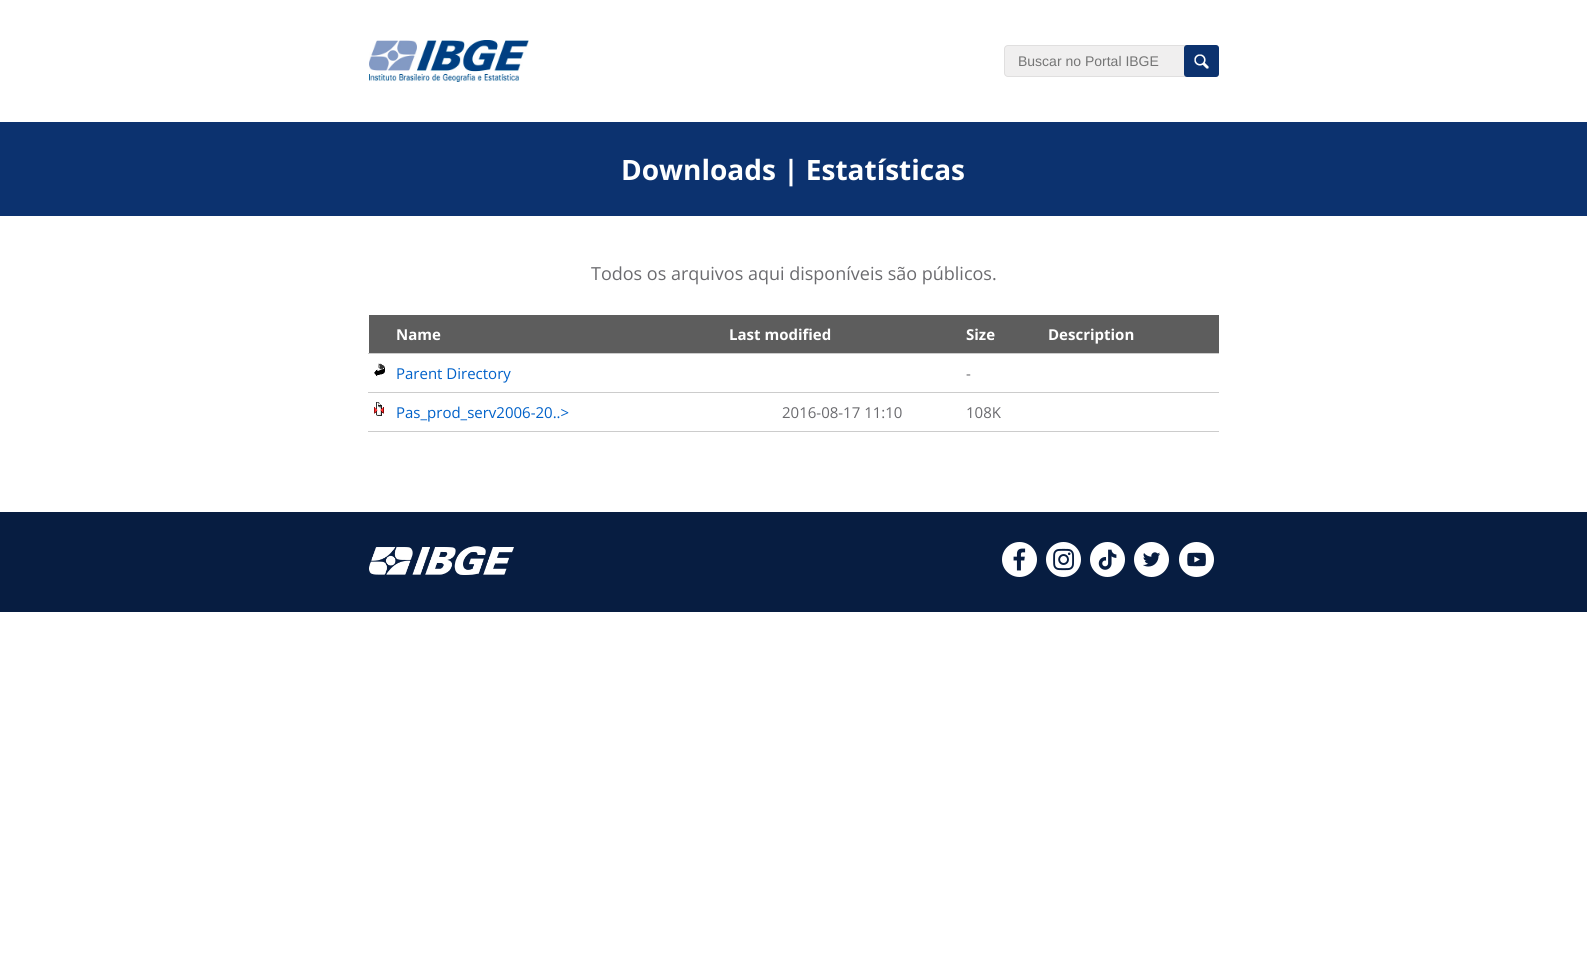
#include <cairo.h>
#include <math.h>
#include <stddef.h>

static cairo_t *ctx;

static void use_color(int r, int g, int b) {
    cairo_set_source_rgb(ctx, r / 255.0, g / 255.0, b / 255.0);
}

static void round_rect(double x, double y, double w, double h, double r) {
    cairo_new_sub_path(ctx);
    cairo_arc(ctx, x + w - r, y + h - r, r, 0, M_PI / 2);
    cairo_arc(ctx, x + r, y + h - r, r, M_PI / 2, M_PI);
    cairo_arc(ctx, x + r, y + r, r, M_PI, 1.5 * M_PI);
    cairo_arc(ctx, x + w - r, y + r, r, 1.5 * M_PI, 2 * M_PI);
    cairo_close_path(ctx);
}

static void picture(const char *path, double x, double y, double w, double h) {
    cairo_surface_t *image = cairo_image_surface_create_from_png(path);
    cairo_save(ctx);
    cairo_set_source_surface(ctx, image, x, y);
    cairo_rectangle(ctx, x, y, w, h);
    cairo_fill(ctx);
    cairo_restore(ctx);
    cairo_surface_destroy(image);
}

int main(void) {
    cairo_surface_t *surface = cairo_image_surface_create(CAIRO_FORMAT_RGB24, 1587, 980);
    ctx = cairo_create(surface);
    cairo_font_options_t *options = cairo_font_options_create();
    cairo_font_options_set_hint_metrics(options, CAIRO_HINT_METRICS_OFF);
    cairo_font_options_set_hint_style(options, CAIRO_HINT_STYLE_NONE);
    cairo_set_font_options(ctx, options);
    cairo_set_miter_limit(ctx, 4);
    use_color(255, 255, 255);
    cairo_paint(ctx);
    picture("img1.png", 369, 40, 160, 42);
    use_color(240, 239, 239);
    round_rect(1004.5, 45.5, 214, 31, 3.5);
    cairo_fill_preserve(ctx);
    use_color(224, 223, 223);
    cairo_set_line_width(ctx, 1);
    cairo_stroke(ctx);
    cairo_select_font_face(ctx, "Liberation Sans", CAIRO_FONT_SLANT_NORMAL, CAIRO_FONT_WEIGHT_NORMAL);
    cairo_set_font_size(ctx, 14);
    use_color(117, 117, 117);
    cairo_move_to(ctx, 1018, 66);
    cairo_show_text(ctx, "Buscar no Portal IBGE");
    use_color(12, 50, 111);
    round_rect(1184, 45, 35, 32, 3);
    cairo_fill(ctx);
    picture("img2.png", 1194, 54, 15, 15);
    cairo_rectangle(ctx, 0, 122, 1587, 94);
    cairo_fill(ctx);
    cairo_select_font_face(ctx, "Open Sans", CAIRO_FONT_SLANT_NORMAL, CAIRO_FONT_WEIGHT_BOLD);
    cairo_set_font_size(ctx, 28);
    use_color(255, 255, 255);
    cairo_move_to(ctx, 621, 180);
    cairo_show_text(ctx, "Downloads | Estatísticas");
    cairo_select_font_face(ctx, "Open Sans", CAIRO_FONT_SLANT_NORMAL, CAIRO_FONT_WEIGHT_NORMAL);
    cairo_set_font_size(ctx, 18);
    use_color(107, 107, 111);
    cairo_move_to(ctx, 591, 280);
    cairo_show_text(ctx, "Todos os arquivos aqui disponíveis são públicos.");
    use_color(204, 204, 204);
    cairo_rectangle(ctx, 368, 353, 851, 1);
    cairo_fill(ctx);
    use_color(93, 93, 93);
    cairo_rectangle(ctx, 369, 315, 850, 38);
    cairo_fill(ctx);
    cairo_select_font_face(ctx, "Open Sans", CAIRO_FONT_SLANT_NORMAL, CAIRO_FONT_WEIGHT_BOLD);
    cairo_set_font_size(ctx, 15);
    use_color(255, 255, 255);
    cairo_move_to(ctx, 396, 340);
    cairo_show_text(ctx, "Name");
    cairo_move_to(ctx, 729, 340);
    cairo_show_text(ctx, "Last modified");
    cairo_move_to(ctx, 966, 340);
    cairo_show_text(ctx, "Size");
    cairo_move_to(ctx, 1048, 340);
    cairo_show_text(ctx, "Description");
    use_color(204, 204, 204);
    cairo_rectangle(ctx, 368, 392, 851, 1);
    cairo_fill(ctx);
    picture("img3.png", 374, 363, 11, 14);
    cairo_select_font_face(ctx, "Open Sans", CAIRO_FONT_SLANT_NORMAL, CAIRO_FONT_WEIGHT_NORMAL);
    use_color(0, 97, 201);
    cairo_move_to(ctx, 396, 379);
    cairo_show_text(ctx, "Parent Directory");
    use_color(107, 107, 111);
    cairo_move_to(ctx, 966, 379);
    cairo_show_text(ctx, "-");
    picture("img4.png", 374, 402, 10, 14);
    use_color(0, 97, 201);
    cairo_move_to(ctx, 396, 418);
    cairo_show_text(ctx, "Pas_prod_serv2006-20..>");
    use_color(107, 107, 111);
    cairo_move_to(ctx, 782, 418);
    cairo_show_text(ctx, "2016-08-17 11:10");
    cairo_move_to(ctx, 966, 418);
    cairo_show_text(ctx, "108K");
    use_color(204, 204, 204);
    cairo_rectangle(ctx, 368, 431, 851, 1);
    cairo_fill(ctx);
    use_color(7, 29, 65);
    cairo_rectangle(ctx, 0, 512, 1587, 100);
    cairo_fill(ctx);
    picture("img5.png", 369, 546, 145, 29);
    picture("img6.png", 1002, 542, 35, 35);
    picture("img7.png", 1046, 542, 35, 35);
    picture("img8.png", 1090, 542, 35, 35);
    picture("img9.png", 1134, 542, 35, 35);
    picture("img10.png", 1179, 542, 35, 35);
    cairo_surface_write_to_png(surface, "result.png");
    cairo_font_options_destroy(options);
    cairo_destroy(ctx);
    cairo_surface_destroy(surface);
    return 0;
}
